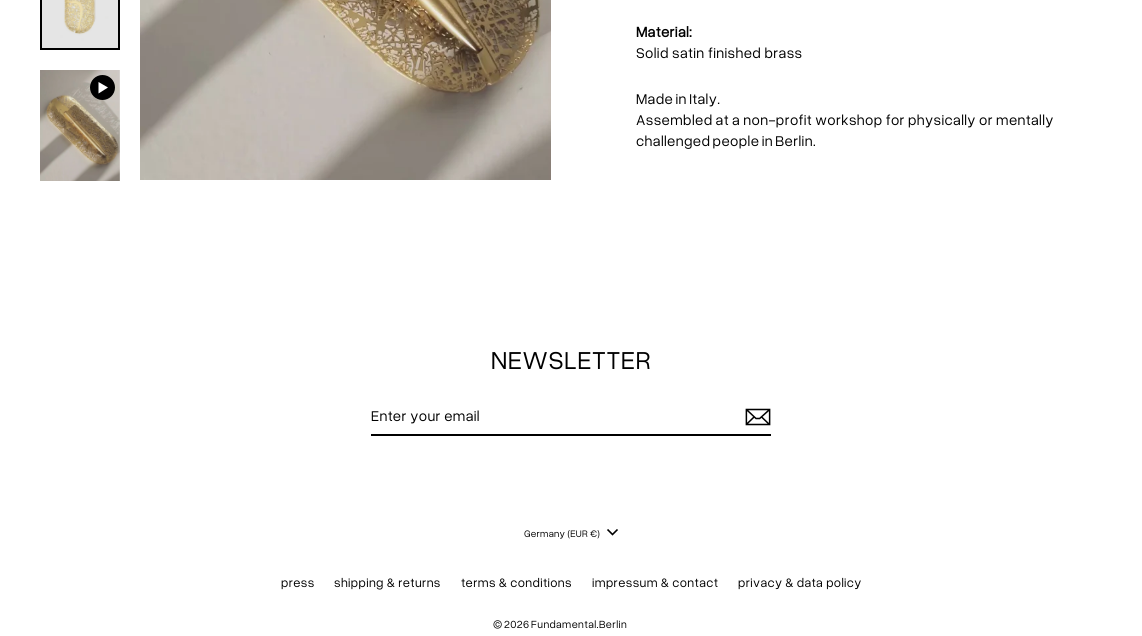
#include <cairo.h>
#include <math.h>
#include <stddef.h>

static cairo_t *ctx;

static void use_color(int r, int g, int b) {
    cairo_set_source_rgb(ctx, r / 255.0, g / 255.0, b / 255.0);
}

static void spaced_text(double x, double y, const char *s, double letter, double word) {
    cairo_move_to(ctx, x, y);
    while (*s) {
        char ch[5] = {0};
        int n = 0;
        do ch[n++] = *s++; while ((*s & 0xC0) == 0x80);
        cairo_show_text(ctx, ch);
        cairo_rel_move_to(ctx, letter + word * (*ch == ' '), 0);
    }
}

static void picture(const char *path, double x, double y, double w, double h) {
    cairo_surface_t *image = cairo_image_surface_create_from_png(path);
    cairo_save(ctx);
    cairo_set_source_surface(ctx, image, x, y);
    cairo_rectangle(ctx, x, y, w, h);
    cairo_fill(ctx);
    cairo_restore(ctx);
    cairo_surface_destroy(image);
}

int main(void) {
    cairo_surface_t *surface = cairo_image_surface_create(CAIRO_FORMAT_RGB24, 1142, 636);
    ctx = cairo_create(surface);
    cairo_font_options_t *options = cairo_font_options_create();
    cairo_font_options_set_hint_metrics(options, CAIRO_HINT_METRICS_OFF);
    cairo_font_options_set_hint_style(options, CAIRO_HINT_STYLE_NONE);
    cairo_set_font_options(ctx, options);
    cairo_set_miter_limit(ctx, 4);
    use_color(255, 255, 255);
    cairo_paint(ctx);
    picture("img1.png", 42, 0, 76, 48);
    cairo_rectangle(ctx, 41, -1, 78, 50);
    use_color(0, 0, 0);
    cairo_stroke(ctx);
    picture("img2.png", 40, 70, 80, 111);
    cairo_arc(ctx, 102.5, 87.5, 12.5, 0, 2 * M_PI);
    cairo_fill(ctx);
    use_color(255, 255, 255);
    cairo_new_path(ctx);
    cairo_move_to(ctx, 98.5, 82);
    cairo_line_to(ctx, 98.5, 93.5);
    cairo_line_to(ctx, 108, 87.5);
    cairo_close_path(ctx);
    cairo_fill(ctx);
    picture("img3.png", 140, 0, 411, 180);
    cairo_select_font_face(ctx, "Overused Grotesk", CAIRO_FONT_SLANT_NORMAL, CAIRO_FONT_WEIGHT_BOLD);
    cairo_set_font_size(ctx, 15);
    use_color(0, 0, 0);
    spaced_text(636, 37, "Material:", 0.38, 0);
    cairo_select_font_face(ctx, "Overused Grotesk", CAIRO_FONT_SLANT_NORMAL, CAIRO_FONT_WEIGHT_NORMAL);
    spaced_text(636, 58, "Solid satin finished brass", 0.38, 0);
    spaced_text(636, 104, "Made in Italy.", 0.38, -1);
    spaced_text(636, 125, "Assembled at a non-profit workshop for physically or mentally", 0.38, -0.25);
    spaced_text(636, 146, "challenged people in Berlin.", 0.38, -1);
    cairo_set_font_size(ctx, 26);
    spaced_text(491, 369, "NEWSLETTER", 0.75, 0);
    cairo_rectangle(ctx, 371, 434, 400, 2);
    cairo_fill(ctx);
    cairo_set_font_size(ctx, 15);
    spaced_text(371, 421, "Enter your email", 0.38, 0);
    picture("img4.png", 745, 408, 26, 18);
    cairo_set_font_size(ctx, 10);
    spaced_text(524, 537, "Germany (EUR €)", 0.25, 0);
    cairo_new_path(ctx);
    cairo_move_to(ctx, 607.5, 529.5);
    cairo_line_to(ctx, 612.5, 534.5);
    cairo_line_to(ctx, 617.5, 529.5);
    cairo_set_line_width(ctx, 1.6);
    cairo_stroke(ctx);
    cairo_set_font_size(ctx, 13);
    spaced_text(281, 587, "press", 0.38, 0);
    spaced_text(334, 587, "shipping & returns", 0.38, 0);
    spaced_text(461, 587, "terms & conditions", 0.38, 0);
    spaced_text(592, 587, "impressum & contact", 0.38, 0);
    spaced_text(738, 587, "privacy & data policy", 0.38, 0);
    cairo_set_font_size(ctx, 11);
    spaced_text(493, 628, "© 2026 Fundamental.Berlin", 0.38, -1);
    cairo_surface_write_to_png(surface, "result.png");
    cairo_font_options_destroy(options);
    cairo_destroy(ctx);
    cairo_surface_destroy(surface);
    return 0;
}
